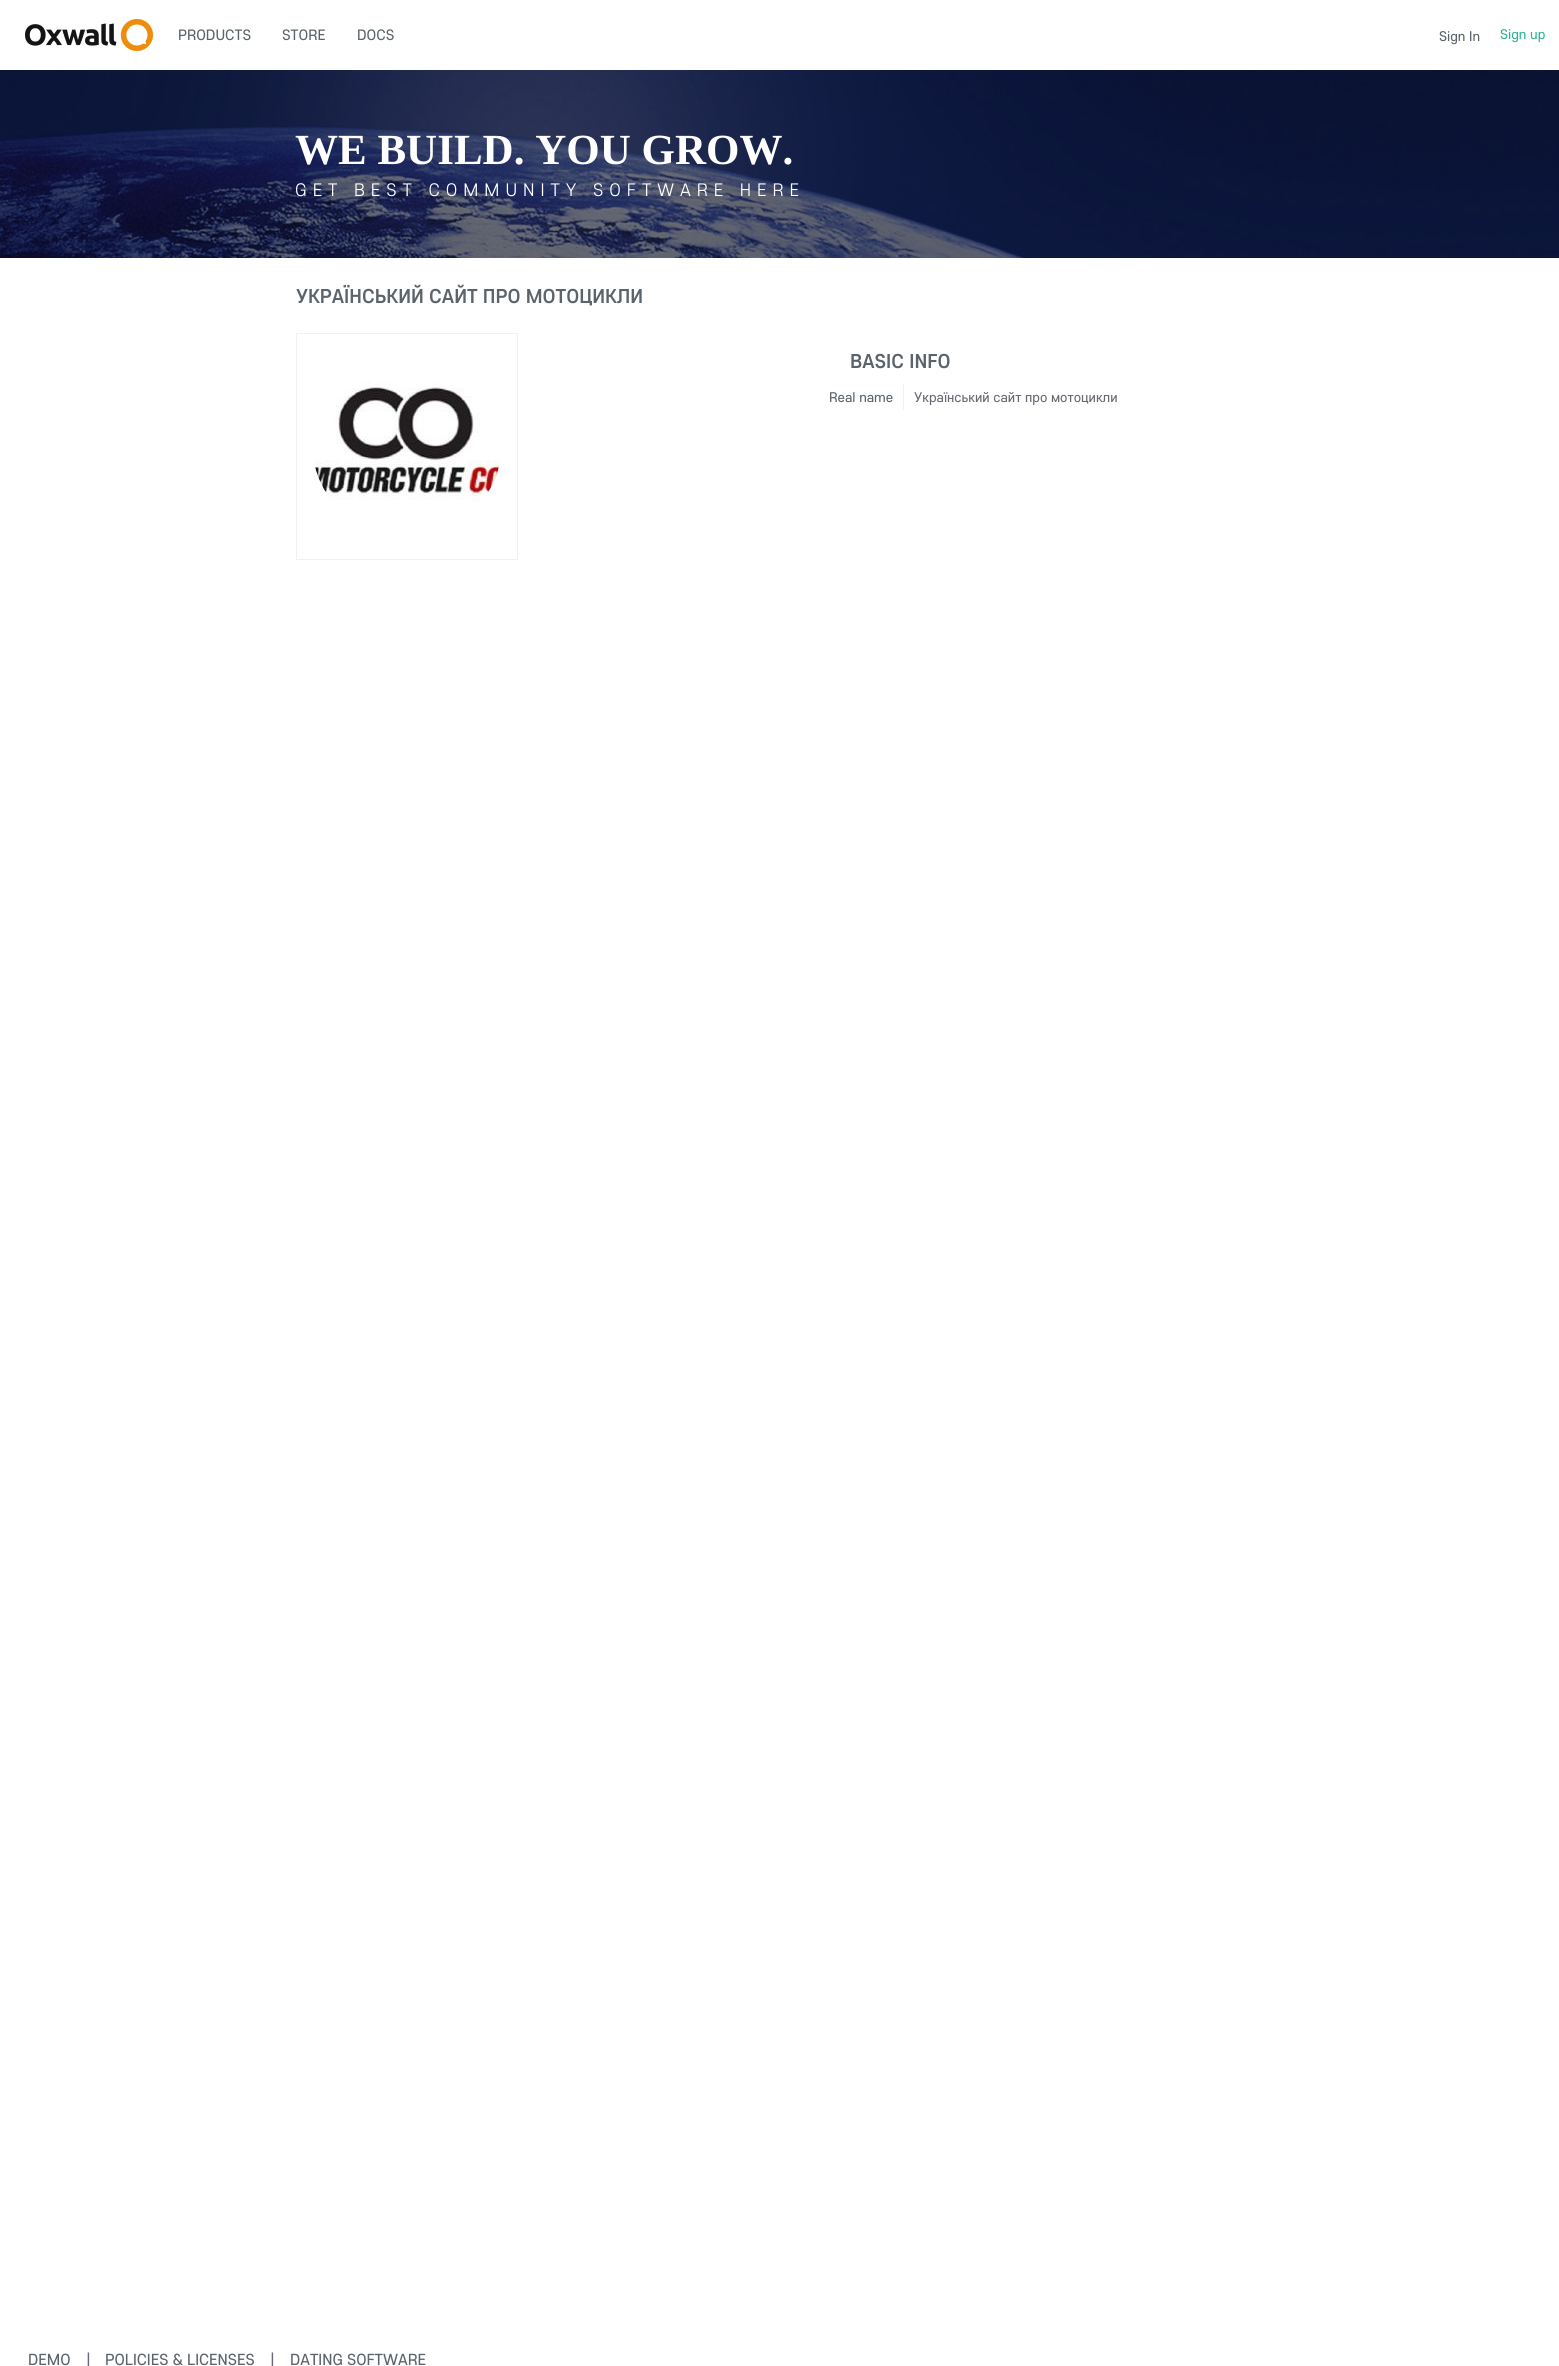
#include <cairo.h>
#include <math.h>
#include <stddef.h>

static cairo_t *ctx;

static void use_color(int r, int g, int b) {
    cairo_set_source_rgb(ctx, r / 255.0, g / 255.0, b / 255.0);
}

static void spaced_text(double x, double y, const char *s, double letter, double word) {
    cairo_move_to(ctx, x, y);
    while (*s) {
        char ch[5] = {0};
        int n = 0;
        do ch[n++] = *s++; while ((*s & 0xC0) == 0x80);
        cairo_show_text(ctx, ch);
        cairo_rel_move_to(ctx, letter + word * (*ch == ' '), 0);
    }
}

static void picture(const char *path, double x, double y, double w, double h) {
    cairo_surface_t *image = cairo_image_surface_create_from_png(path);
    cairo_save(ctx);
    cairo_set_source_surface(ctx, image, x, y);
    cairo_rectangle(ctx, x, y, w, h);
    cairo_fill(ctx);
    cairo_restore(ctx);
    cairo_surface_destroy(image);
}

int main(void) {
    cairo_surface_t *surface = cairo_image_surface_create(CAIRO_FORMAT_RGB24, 1559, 2366);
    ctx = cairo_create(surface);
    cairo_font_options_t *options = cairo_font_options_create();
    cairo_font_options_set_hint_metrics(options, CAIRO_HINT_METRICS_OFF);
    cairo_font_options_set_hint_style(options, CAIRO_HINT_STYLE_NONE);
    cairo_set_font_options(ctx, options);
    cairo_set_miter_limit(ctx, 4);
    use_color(255, 255, 255);
    cairo_paint(ctx);
    picture("img1.png", 25, 19, 128, 32);
    cairo_select_font_face(ctx, "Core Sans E", CAIRO_FONT_SLANT_NORMAL, CAIRO_FONT_WEIGHT_NORMAL);
    cairo_set_font_size(ctx, 15);
    use_color(91, 100, 106);
    cairo_move_to(ctx, 178, 40);
    cairo_show_text(ctx, "PRODUCTS");
    cairo_move_to(ctx, 282, 40);
    cairo_show_text(ctx, "STORE");
    cairo_move_to(ctx, 357, 40);
    cairo_show_text(ctx, "DOCS");
    cairo_set_font_size(ctx, 14);
    cairo_move_to(ctx, 1439, 41);
    cairo_show_text(ctx, "Sign In");
    use_color(45, 179, 149);
    cairo_move_to(ctx, 1500, 39);
    cairo_show_text(ctx, "Sign up");
    picture("img2.png", 0, 70, 1559, 188);
    cairo_select_font_face(ctx, "Liberation Serif", CAIRO_FONT_SLANT_NORMAL, CAIRO_FONT_WEIGHT_BOLD);
    cairo_set_font_size(ctx, 43);
    use_color(255, 255, 255);
    cairo_move_to(ctx, 295, 164);
    cairo_show_text(ctx, "WE BUILD. YOU GROW.");
    cairo_select_font_face(ctx, "Core Sans E Light", CAIRO_FONT_SLANT_NORMAL, CAIRO_FONT_WEIGHT_NORMAL);
    cairo_set_font_size(ctx, 18);
    spaced_text(295, 196, "GET BEST COMMUNITY SOFTWARE HERE", 6, 0);
    cairo_select_font_face(ctx, "Core Sans E Medium", CAIRO_FONT_SLANT_NORMAL, CAIRO_FONT_WEIGHT_NORMAL);
    cairo_set_font_size(ctx, 20);
    use_color(91, 100, 106);
    cairo_move_to(ctx, 296, 303);
    cairo_show_text(ctx, "УКРАЇНСЬКИЙ САЙТ ПРО МОТОЦИКЛИ");
    cairo_rectangle(ctx, 296.5, 333.5, 221, 226);
    use_color(239, 242, 245);
    cairo_set_line_width(ctx, 1);
    cairo_stroke(ctx);
    picture("img3.png", 314, 382, 186, 120);
    use_color(91, 100, 106);
    cairo_move_to(ctx, 850, 368);
    cairo_show_text(ctx, "BASIC INFO");
    cairo_select_font_face(ctx, "Core Sans E", CAIRO_FONT_SLANT_NORMAL, CAIRO_FONT_WEIGHT_NORMAL);
    cairo_set_font_size(ctx, 14);
    cairo_move_to(ctx, 829, 402);
    cairo_show_text(ctx, "Real name");
    use_color(239, 242, 245);
    cairo_rectangle(ctx, 903, 384, 1, 26);
    cairo_fill(ctx);
    use_color(102, 106, 115);
    cairo_move_to(ctx, 914, 402);
    cairo_show_text(ctx, "Український сайт про мотоцикли");
    cairo_set_font_size(ctx, 16);
    use_color(91, 100, 106);
    cairo_move_to(ctx, 28, 2365);
    cairo_show_text(ctx, "DEMO");
    use_color(102, 106, 115);
    cairo_move_to(ctx, 86, 2365);
    cairo_show_text(ctx, "|");
    use_color(91, 100, 106);
    cairo_move_to(ctx, 105, 2365);
    cairo_show_text(ctx, "POLICIES & LICENSES");
    use_color(102, 106, 115);
    cairo_move_to(ctx, 270, 2365);
    cairo_show_text(ctx, "|");
    use_color(91, 100, 106);
    cairo_move_to(ctx, 290, 2365);
    cairo_show_text(ctx, "DATING SOFTWARE");
    cairo_surface_write_to_png(surface, "result.png");
    cairo_font_options_destroy(options);
    cairo_destroy(ctx);
    cairo_surface_destroy(surface);
    return 0;
}
